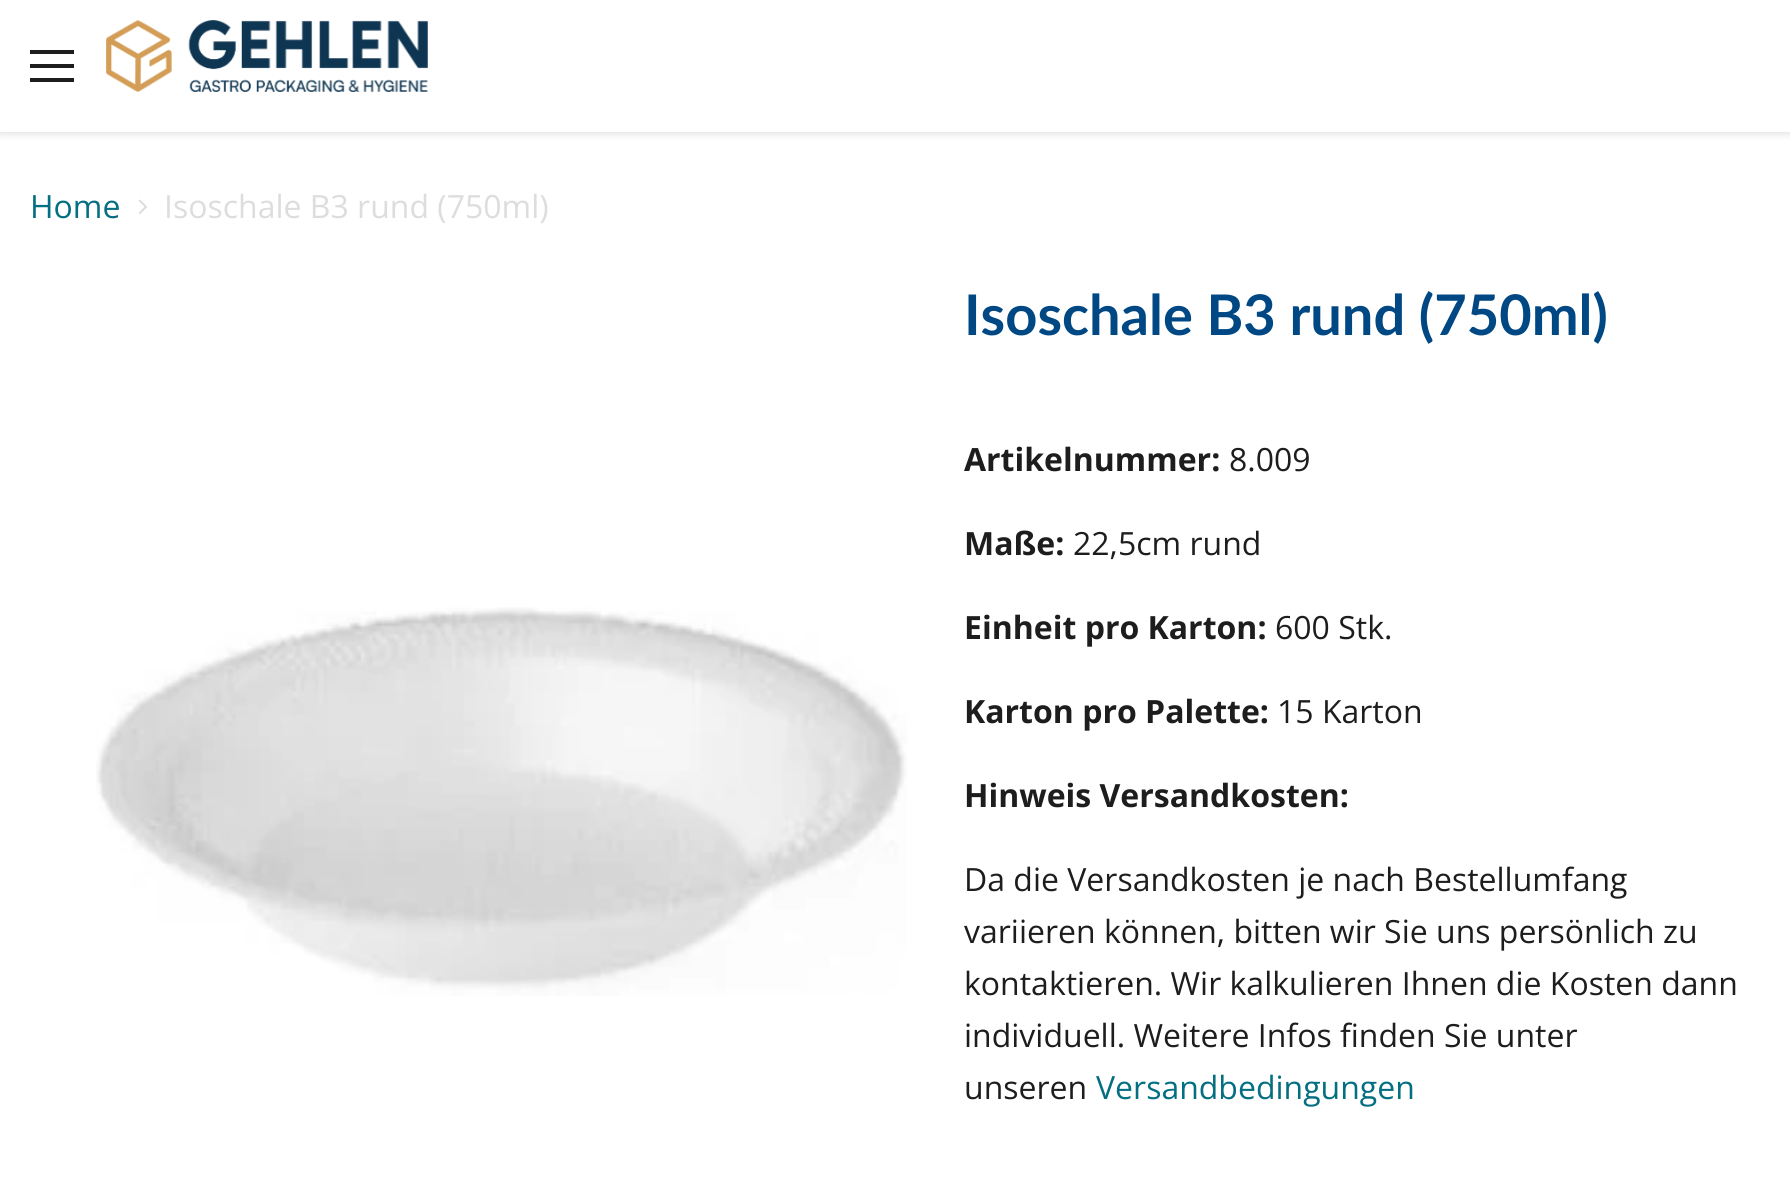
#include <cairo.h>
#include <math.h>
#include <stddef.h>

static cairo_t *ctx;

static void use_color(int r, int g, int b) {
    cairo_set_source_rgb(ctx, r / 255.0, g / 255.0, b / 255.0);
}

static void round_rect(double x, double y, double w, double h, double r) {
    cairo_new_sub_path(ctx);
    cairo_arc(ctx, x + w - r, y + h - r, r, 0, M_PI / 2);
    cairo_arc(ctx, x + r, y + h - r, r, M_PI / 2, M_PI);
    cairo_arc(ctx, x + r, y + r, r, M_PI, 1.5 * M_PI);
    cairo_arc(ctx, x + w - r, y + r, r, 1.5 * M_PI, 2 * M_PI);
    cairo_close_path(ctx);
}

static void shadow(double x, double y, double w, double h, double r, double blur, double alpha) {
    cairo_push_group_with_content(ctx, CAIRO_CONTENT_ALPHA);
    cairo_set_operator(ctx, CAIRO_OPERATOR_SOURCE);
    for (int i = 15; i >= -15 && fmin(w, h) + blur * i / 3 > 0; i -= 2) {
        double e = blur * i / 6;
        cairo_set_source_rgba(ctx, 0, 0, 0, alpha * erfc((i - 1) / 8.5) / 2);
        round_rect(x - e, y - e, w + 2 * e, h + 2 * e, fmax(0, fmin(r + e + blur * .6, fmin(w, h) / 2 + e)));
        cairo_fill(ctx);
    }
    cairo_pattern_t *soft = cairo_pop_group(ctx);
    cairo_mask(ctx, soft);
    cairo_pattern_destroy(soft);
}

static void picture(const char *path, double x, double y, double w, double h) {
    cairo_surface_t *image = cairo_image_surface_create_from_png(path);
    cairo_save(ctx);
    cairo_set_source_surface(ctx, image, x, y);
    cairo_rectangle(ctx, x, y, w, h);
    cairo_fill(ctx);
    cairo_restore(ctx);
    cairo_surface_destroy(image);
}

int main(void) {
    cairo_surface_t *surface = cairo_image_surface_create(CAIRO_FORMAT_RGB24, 1790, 1188);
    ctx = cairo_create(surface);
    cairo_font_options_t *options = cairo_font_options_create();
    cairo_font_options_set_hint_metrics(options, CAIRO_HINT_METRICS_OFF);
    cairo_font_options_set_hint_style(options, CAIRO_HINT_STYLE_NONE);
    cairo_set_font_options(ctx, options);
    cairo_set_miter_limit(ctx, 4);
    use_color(255, 255, 255);
    cairo_paint(ctx);
    cairo_save(ctx);
    cairo_rectangle(ctx, 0, 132, 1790, 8);
    cairo_clip(ctx);
    use_color(128, 128, 128);
    shadow(0, 2, 1790, 132, 0, 4, 0.25);
    cairo_restore(ctx);
    use_color(29, 29, 29);
    cairo_rectangle(ctx, 30, 50, 44, 4);
    cairo_fill(ctx);
    cairo_rectangle(ctx, 30, 64, 44, 4);
    cairo_fill(ctx);
    cairo_rectangle(ctx, 30, 78, 44, 4);
    cairo_fill(ctx);
    picture("img1.png", 106, 20, 322, 72);
    cairo_select_font_face(ctx, "Open Sans", CAIRO_FONT_SLANT_NORMAL, CAIRO_FONT_WEIGHT_NORMAL);
    cairo_set_font_size(ctx, 32);
    use_color(4, 110, 130);
    cairo_move_to(ctx, 30, 218);
    cairo_show_text(ctx, "Home");
    picture("img2.png", 138, 199, 9, 15);
    use_color(221, 221, 221);
    cairo_move_to(ctx, 164, 218);
    cairo_show_text(ctx, "Isoschale B3 rund (750ml)");
    picture("img3.png", 96, 607, 811, 389);
    cairo_select_font_face(ctx, "Lato", CAIRO_FONT_SLANT_NORMAL, CAIRO_FONT_WEIGHT_BOLD);
    cairo_set_font_size(ctx, 56);
    use_color(0, 72, 132);
    cairo_move_to(ctx, 964, 335);
    cairo_show_text(ctx, "Isoschale B3 rund (750ml)");
    cairo_select_font_face(ctx, "Open Sans", CAIRO_FONT_SLANT_NORMAL, CAIRO_FONT_WEIGHT_BOLD);
    cairo_set_font_size(ctx, 32);
    use_color(29, 29, 29);
    cairo_move_to(ctx, 964, 471);
    cairo_show_text(ctx, "Artikelnummer:");
    cairo_select_font_face(ctx, "Open Sans", CAIRO_FONT_SLANT_NORMAL, CAIRO_FONT_WEIGHT_NORMAL);
    cairo_move_to(ctx, 1229, 471);
    cairo_show_text(ctx, "8.009");
    cairo_select_font_face(ctx, "Open Sans", CAIRO_FONT_SLANT_NORMAL, CAIRO_FONT_WEIGHT_BOLD);
    cairo_move_to(ctx, 964, 555);
    cairo_show_text(ctx, "Maße:");
    cairo_select_font_face(ctx, "Open Sans", CAIRO_FONT_SLANT_NORMAL, CAIRO_FONT_WEIGHT_NORMAL);
    cairo_move_to(ctx, 1073, 555);
    cairo_show_text(ctx, "22,5cm rund");
    cairo_select_font_face(ctx, "Open Sans", CAIRO_FONT_SLANT_NORMAL, CAIRO_FONT_WEIGHT_BOLD);
    cairo_move_to(ctx, 964, 639);
    cairo_show_text(ctx, "Einheit pro Karton:");
    cairo_select_font_face(ctx, "Open Sans", CAIRO_FONT_SLANT_NORMAL, CAIRO_FONT_WEIGHT_NORMAL);
    cairo_move_to(ctx, 1275, 639);
    cairo_show_text(ctx, "600 Stk.");
    cairo_select_font_face(ctx, "Open Sans", CAIRO_FONT_SLANT_NORMAL, CAIRO_FONT_WEIGHT_BOLD);
    cairo_move_to(ctx, 964, 723);
    cairo_show_text(ctx, "Karton pro Palette:");
    cairo_select_font_face(ctx, "Open Sans", CAIRO_FONT_SLANT_NORMAL, CAIRO_FONT_WEIGHT_NORMAL);
    cairo_move_to(ctx, 1277, 723);
    cairo_show_text(ctx, "15 Karton");
    cairo_select_font_face(ctx, "Open Sans", CAIRO_FONT_SLANT_NORMAL, CAIRO_FONT_WEIGHT_BOLD);
    cairo_move_to(ctx, 964, 807);
    cairo_show_text(ctx, "Hinweis Versandkosten:");
    cairo_select_font_face(ctx, "Open Sans", CAIRO_FONT_SLANT_NORMAL, CAIRO_FONT_WEIGHT_NORMAL);
    cairo_move_to(ctx, 964, 891);
    cairo_show_text(ctx, "Da die Versandkosten je nach Bestellumfang");
    cairo_move_to(ctx, 964, 943);
    cairo_show_text(ctx, "variieren können, bitten wir Sie uns persönlich zu");
    cairo_move_to(ctx, 964, 995);
    cairo_show_text(ctx, "kontaktieren. Wir kalkulieren Ihnen die Kosten dann");
    cairo_move_to(ctx, 964, 1047);
    cairo_show_text(ctx, "individuell. Weitere Infos finden Sie unter");
    cairo_move_to(ctx, 964, 1099);
    cairo_show_text(ctx, "unseren");
    use_color(4, 110, 130);
    cairo_move_to(ctx, 1096, 1099);
    cairo_show_text(ctx, "Versandbedingungen");
    cairo_surface_write_to_png(surface, "result.png");
    cairo_font_options_destroy(options);
    cairo_destroy(ctx);
    cairo_surface_destroy(surface);
    return 0;
}
